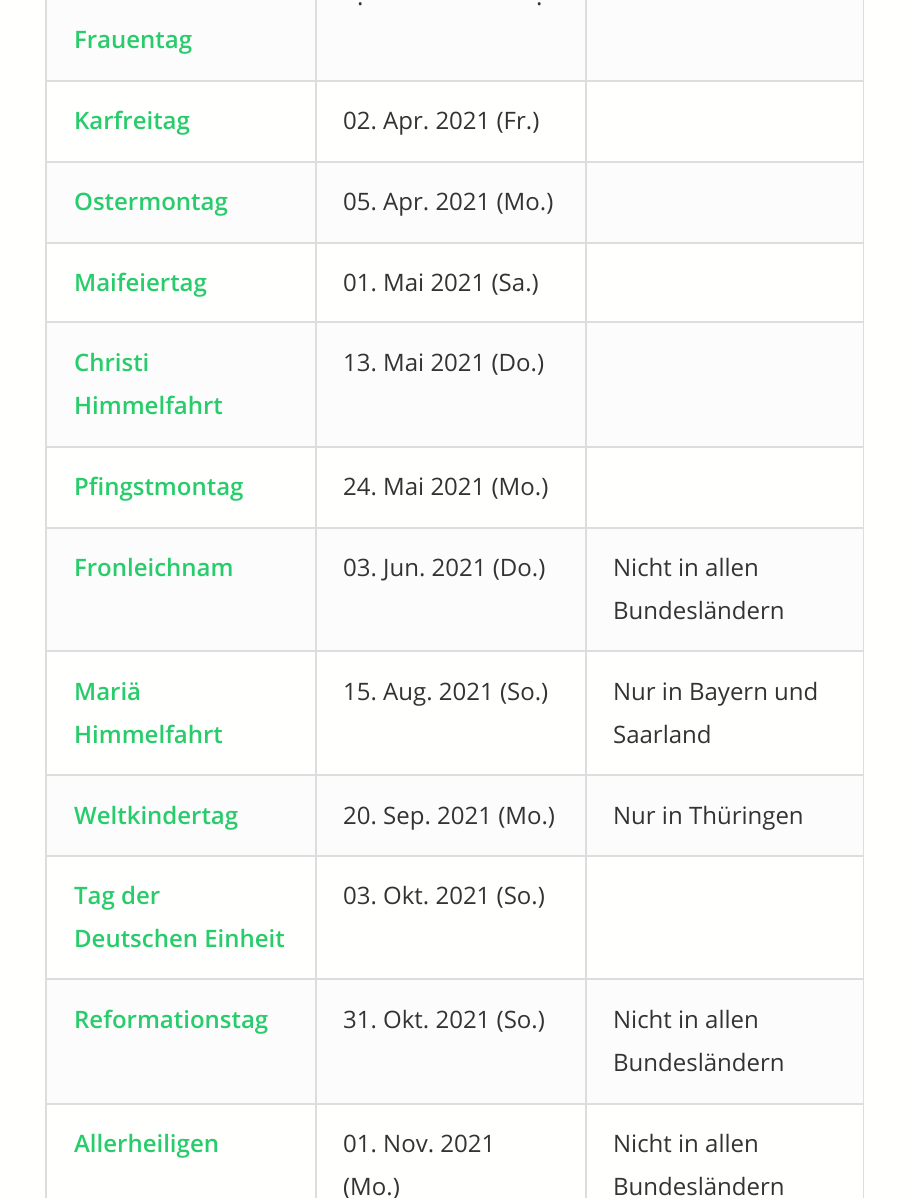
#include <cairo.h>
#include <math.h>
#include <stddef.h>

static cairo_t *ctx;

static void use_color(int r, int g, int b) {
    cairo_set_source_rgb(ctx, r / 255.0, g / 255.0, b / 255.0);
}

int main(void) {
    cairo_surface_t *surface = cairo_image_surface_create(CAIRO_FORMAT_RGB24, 908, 1198);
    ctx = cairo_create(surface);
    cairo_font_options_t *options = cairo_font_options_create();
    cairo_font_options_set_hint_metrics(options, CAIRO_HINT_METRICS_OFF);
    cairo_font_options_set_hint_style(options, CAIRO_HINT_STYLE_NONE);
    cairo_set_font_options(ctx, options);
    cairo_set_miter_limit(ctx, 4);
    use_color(255, 255, 254);
    cairo_paint(ctx);
    use_color(221, 221, 221);
    cairo_rectangle(ctx, 863, 0, 1, 1198);
    cairo_fill(ctx);
    cairo_rectangle(ctx, 45, 0, 2, 1198);
    cairo_fill(ctx);
    use_color(252, 252, 252);
    cairo_rectangle(ctx, 47, 0, 816, 80);
    cairo_fill(ctx);
    use_color(221, 221, 221);
    cairo_rectangle(ctx, 585, 80, 279, 2);
    cairo_fill(ctx);
    cairo_rectangle(ctx, 585, 161, 279, 2);
    cairo_fill(ctx);
    use_color(252, 252, 252);
    cairo_rectangle(ctx, 47, 163, 816, 79);
    cairo_fill(ctx);
    use_color(221, 221, 221);
    cairo_rectangle(ctx, 585, 242, 279, 2);
    cairo_fill(ctx);
    cairo_rectangle(ctx, 585, 321, 279, 2);
    cairo_fill(ctx);
    use_color(252, 252, 252);
    cairo_rectangle(ctx, 47, 323, 816, 123);
    cairo_fill(ctx);
    use_color(221, 221, 221);
    cairo_rectangle(ctx, 585, 446, 279, 2);
    cairo_fill(ctx);
    cairo_rectangle(ctx, 585, 527, 279, 2);
    cairo_fill(ctx);
    use_color(252, 252, 252);
    cairo_rectangle(ctx, 47, 529, 816, 121);
    cairo_fill(ctx);
    use_color(221, 221, 221);
    cairo_rectangle(ctx, 585, 650, 279, 2);
    cairo_fill(ctx);
    cairo_rectangle(ctx, 585, 774, 279, 2);
    cairo_fill(ctx);
    use_color(252, 252, 252);
    cairo_rectangle(ctx, 47, 776, 816, 79);
    cairo_fill(ctx);
    use_color(221, 221, 221);
    cairo_rectangle(ctx, 585, 855, 279, 2);
    cairo_fill(ctx);
    cairo_rectangle(ctx, 585, 978, 279, 2);
    cairo_fill(ctx);
    use_color(252, 252, 252);
    cairo_rectangle(ctx, 47, 980, 816, 123);
    cairo_fill(ctx);
    use_color(221, 221, 221);
    cairo_rectangle(ctx, 585, 1103, 279, 2);
    cairo_fill(ctx);
    cairo_rectangle(ctx, 585, 1103, 2, 95);
    cairo_fill(ctx);
    cairo_rectangle(ctx, 315, 1103, 272, 2);
    cairo_fill(ctx);
    cairo_rectangle(ctx, 585, 978, 2, 126);
    cairo_fill(ctx);
    cairo_rectangle(ctx, 315, 978, 272, 2);
    cairo_fill(ctx);
    cairo_rectangle(ctx, 585, 855, 2, 125);
    cairo_fill(ctx);
    cairo_rectangle(ctx, 315, 855, 272, 2);
    cairo_fill(ctx);
    cairo_rectangle(ctx, 585, 774, 2, 83);
    cairo_fill(ctx);
    cairo_rectangle(ctx, 315, 774, 272, 2);
    cairo_fill(ctx);
    cairo_rectangle(ctx, 585, 650, 2, 126);
    cairo_fill(ctx);
    cairo_rectangle(ctx, 315, 650, 272, 2);
    cairo_fill(ctx);
    cairo_rectangle(ctx, 585, 527, 2, 124);
    cairo_fill(ctx);
    cairo_rectangle(ctx, 315, 527, 272, 2);
    cairo_fill(ctx);
    cairo_rectangle(ctx, 585, 446, 2, 82);
    cairo_fill(ctx);
    cairo_rectangle(ctx, 315, 446, 272, 2);
    cairo_fill(ctx);
    cairo_rectangle(ctx, 585, 321, 2, 126);
    cairo_fill(ctx);
    cairo_rectangle(ctx, 315, 321, 272, 2);
    cairo_fill(ctx);
    cairo_rectangle(ctx, 585, 242, 2, 81);
    cairo_fill(ctx);
    cairo_rectangle(ctx, 315, 242, 272, 2);
    cairo_fill(ctx);
    cairo_rectangle(ctx, 585, 161, 2, 82);
    cairo_fill(ctx);
    cairo_rectangle(ctx, 315, 161, 272, 2);
    cairo_fill(ctx);
    cairo_rectangle(ctx, 585, 80, 2, 82);
    cairo_fill(ctx);
    cairo_rectangle(ctx, 315, 80, 272, 2);
    cairo_fill(ctx);
    cairo_rectangle(ctx, 315, 1103, 2, 95);
    cairo_fill(ctx);
    cairo_rectangle(ctx, 45, 1103, 272, 2);
    cairo_fill(ctx);
    cairo_rectangle(ctx, 315, 978, 2, 126);
    cairo_fill(ctx);
    cairo_rectangle(ctx, 45, 978, 272, 2);
    cairo_fill(ctx);
    cairo_rectangle(ctx, 315, 855, 2, 125);
    cairo_fill(ctx);
    cairo_rectangle(ctx, 45, 855, 272, 2);
    cairo_fill(ctx);
    cairo_rectangle(ctx, 315, 774, 2, 83);
    cairo_fill(ctx);
    cairo_rectangle(ctx, 45, 774, 272, 2);
    cairo_fill(ctx);
    cairo_rectangle(ctx, 315, 650, 2, 126);
    cairo_fill(ctx);
    cairo_rectangle(ctx, 45, 650, 272, 2);
    cairo_fill(ctx);
    cairo_rectangle(ctx, 315, 527, 2, 124);
    cairo_fill(ctx);
    cairo_rectangle(ctx, 45, 527, 272, 2);
    cairo_fill(ctx);
    cairo_rectangle(ctx, 315, 446, 2, 82);
    cairo_fill(ctx);
    cairo_rectangle(ctx, 45, 446, 272, 2);
    cairo_fill(ctx);
    cairo_rectangle(ctx, 315, 321, 2, 126);
    cairo_fill(ctx);
    cairo_rectangle(ctx, 45, 321, 272, 2);
    cairo_fill(ctx);
    cairo_rectangle(ctx, 315, 242, 2, 81);
    cairo_fill(ctx);
    cairo_rectangle(ctx, 45, 242, 272, 2);
    cairo_fill(ctx);
    cairo_rectangle(ctx, 315, 161, 2, 82);
    cairo_fill(ctx);
    cairo_rectangle(ctx, 45, 161, 272, 2);
    cairo_fill(ctx);
    cairo_rectangle(ctx, 315, 80, 2, 82);
    cairo_fill(ctx);
    cairo_rectangle(ctx, 45, 80, 272, 2);
    cairo_fill(ctx);
    cairo_rectangle(ctx, 315, 0, 2, 81);
    cairo_fill(ctx);
    cairo_select_font_face(ctx, "Open Sans", CAIRO_FONT_SLANT_NORMAL, CAIRO_FONT_WEIGHT_NORMAL);
    cairo_set_font_size(ctx, 24);
    use_color(51, 51, 51);
    cairo_move_to(ctx, 357, 5);
    cairo_show_text(ctx, ".");
    cairo_move_to(ctx, 536, 5);
    cairo_show_text(ctx, ".");
    use_color(221, 221, 221);
    cairo_rectangle(ctx, 585, 0, 2, 81);
    cairo_fill(ctx);
    cairo_select_font_face(ctx, "Open Sans SemiBold", CAIRO_FONT_SLANT_NORMAL, CAIRO_FONT_WEIGHT_NORMAL);
    use_color(40, 204, 107);
    cairo_move_to(ctx, 74, 48);
    cairo_show_text(ctx, "Frauentag");
    cairo_move_to(ctx, 74, 129);
    cairo_show_text(ctx, "Karfreitag");
    cairo_select_font_face(ctx, "Open Sans", CAIRO_FONT_SLANT_NORMAL, CAIRO_FONT_WEIGHT_NORMAL);
    use_color(51, 51, 51);
    cairo_move_to(ctx, 343, 129);
    cairo_show_text(ctx, "02. Apr. 2021 (Fr.)");
    cairo_select_font_face(ctx, "Open Sans SemiBold", CAIRO_FONT_SLANT_NORMAL, CAIRO_FONT_WEIGHT_NORMAL);
    use_color(40, 204, 107);
    cairo_move_to(ctx, 74, 210);
    cairo_show_text(ctx, "Ostermontag");
    cairo_select_font_face(ctx, "Open Sans", CAIRO_FONT_SLANT_NORMAL, CAIRO_FONT_WEIGHT_NORMAL);
    use_color(51, 51, 51);
    cairo_move_to(ctx, 343, 210);
    cairo_show_text(ctx, "05. Apr. 2021 (Mo.)");
    cairo_select_font_face(ctx, "Open Sans SemiBold", CAIRO_FONT_SLANT_NORMAL, CAIRO_FONT_WEIGHT_NORMAL);
    use_color(40, 204, 107);
    cairo_move_to(ctx, 74, 291);
    cairo_show_text(ctx, "Maifeiertag");
    cairo_select_font_face(ctx, "Open Sans", CAIRO_FONT_SLANT_NORMAL, CAIRO_FONT_WEIGHT_NORMAL);
    use_color(51, 51, 51);
    cairo_move_to(ctx, 343, 291);
    cairo_show_text(ctx, "01. Mai 2021 (Sa.)");
    cairo_select_font_face(ctx, "Open Sans SemiBold", CAIRO_FONT_SLANT_NORMAL, CAIRO_FONT_WEIGHT_NORMAL);
    use_color(40, 204, 107);
    cairo_move_to(ctx, 74, 371);
    cairo_show_text(ctx, "Christi");
    cairo_move_to(ctx, 74, 414);
    cairo_show_text(ctx, "Himmelfahrt");
    cairo_select_font_face(ctx, "Open Sans", CAIRO_FONT_SLANT_NORMAL, CAIRO_FONT_WEIGHT_NORMAL);
    use_color(51, 51, 51);
    cairo_move_to(ctx, 343, 371);
    cairo_show_text(ctx, "13. Mai 2021 (Do.)");
    cairo_select_font_face(ctx, "Open Sans SemiBold", CAIRO_FONT_SLANT_NORMAL, CAIRO_FONT_WEIGHT_NORMAL);
    use_color(40, 204, 107);
    cairo_move_to(ctx, 74, 495);
    cairo_show_text(ctx, "Pfingstmontag");
    cairo_select_font_face(ctx, "Open Sans", CAIRO_FONT_SLANT_NORMAL, CAIRO_FONT_WEIGHT_NORMAL);
    use_color(51, 51, 51);
    cairo_move_to(ctx, 343, 495);
    cairo_show_text(ctx, "24. Mai 2021 (Mo.)");
    cairo_select_font_face(ctx, "Open Sans SemiBold", CAIRO_FONT_SLANT_NORMAL, CAIRO_FONT_WEIGHT_NORMAL);
    use_color(40, 204, 107);
    cairo_move_to(ctx, 74, 576);
    cairo_show_text(ctx, "Fronleichnam");
    cairo_select_font_face(ctx, "Open Sans", CAIRO_FONT_SLANT_NORMAL, CAIRO_FONT_WEIGHT_NORMAL);
    use_color(51, 51, 51);
    cairo_move_to(ctx, 343, 576);
    cairo_show_text(ctx, "03. Jun. 2021 (Do.)");
    cairo_move_to(ctx, 613, 576);
    cairo_show_text(ctx, "Nicht in allen");
    cairo_move_to(ctx, 613, 619);
    cairo_show_text(ctx, "Bundesländern");
    cairo_select_font_face(ctx, "Open Sans SemiBold", CAIRO_FONT_SLANT_NORMAL, CAIRO_FONT_WEIGHT_NORMAL);
    use_color(40, 204, 107);
    cairo_move_to(ctx, 74, 700);
    cairo_show_text(ctx, "Mariä");
    cairo_move_to(ctx, 74, 743);
    cairo_show_text(ctx, "Himmelfahrt");
    cairo_select_font_face(ctx, "Open Sans", CAIRO_FONT_SLANT_NORMAL, CAIRO_FONT_WEIGHT_NORMAL);
    use_color(51, 51, 51);
    cairo_move_to(ctx, 343, 700);
    cairo_show_text(ctx, "15. Aug. 2021 (So.)");
    cairo_move_to(ctx, 613, 700);
    cairo_show_text(ctx, "Nur in Bayern und");
    cairo_move_to(ctx, 613, 743);
    cairo_show_text(ctx, "Saarland");
    cairo_select_font_face(ctx, "Open Sans SemiBold", CAIRO_FONT_SLANT_NORMAL, CAIRO_FONT_WEIGHT_NORMAL);
    use_color(40, 204, 107);
    cairo_move_to(ctx, 74, 824);
    cairo_show_text(ctx, "Weltkindertag");
    cairo_select_font_face(ctx, "Open Sans", CAIRO_FONT_SLANT_NORMAL, CAIRO_FONT_WEIGHT_NORMAL);
    use_color(51, 51, 51);
    cairo_move_to(ctx, 343, 824);
    cairo_show_text(ctx, "20. Sep. 2021 (Mo.)");
    cairo_move_to(ctx, 613, 824);
    cairo_show_text(ctx, "Nur in Thüringen");
    cairo_select_font_face(ctx, "Open Sans SemiBold", CAIRO_FONT_SLANT_NORMAL, CAIRO_FONT_WEIGHT_NORMAL);
    use_color(40, 204, 107);
    cairo_move_to(ctx, 74, 904);
    cairo_show_text(ctx, "Tag der");
    cairo_move_to(ctx, 74, 947);
    cairo_show_text(ctx, "Deutschen Einheit");
    cairo_select_font_face(ctx, "Open Sans", CAIRO_FONT_SLANT_NORMAL, CAIRO_FONT_WEIGHT_NORMAL);
    use_color(51, 51, 51);
    cairo_move_to(ctx, 343, 904);
    cairo_show_text(ctx, "03. Okt. 2021 (So.)");
    cairo_select_font_face(ctx, "Open Sans SemiBold", CAIRO_FONT_SLANT_NORMAL, CAIRO_FONT_WEIGHT_NORMAL);
    use_color(40, 204, 107);
    cairo_move_to(ctx, 74, 1028);
    cairo_show_text(ctx, "Reformationstag");
    cairo_select_font_face(ctx, "Open Sans", CAIRO_FONT_SLANT_NORMAL, CAIRO_FONT_WEIGHT_NORMAL);
    use_color(51, 51, 51);
    cairo_move_to(ctx, 343, 1028);
    cairo_show_text(ctx, "31. Okt. 2021 (So.)");
    cairo_move_to(ctx, 613, 1028);
    cairo_show_text(ctx, "Nicht in allen");
    cairo_move_to(ctx, 613, 1071);
    cairo_show_text(ctx, "Bundesländern");
    cairo_select_font_face(ctx, "Open Sans SemiBold", CAIRO_FONT_SLANT_NORMAL, CAIRO_FONT_WEIGHT_NORMAL);
    use_color(40, 204, 107);
    cairo_move_to(ctx, 74, 1152);
    cairo_show_text(ctx, "Allerheiligen");
    cairo_select_font_face(ctx, "Open Sans", CAIRO_FONT_SLANT_NORMAL, CAIRO_FONT_WEIGHT_NORMAL);
    use_color(51, 51, 51);
    cairo_move_to(ctx, 343, 1152);
    cairo_show_text(ctx, "01. Nov. 2021");
    cairo_move_to(ctx, 343, 1195);
    cairo_show_text(ctx, "(Mo.)");
    cairo_move_to(ctx, 613, 1152);
    cairo_show_text(ctx, "Nicht in allen");
    cairo_move_to(ctx, 613, 1195);
    cairo_show_text(ctx, "Bundesländern");
    cairo_surface_write_to_png(surface, "result.png");
    cairo_font_options_destroy(options);
    cairo_destroy(ctx);
    cairo_surface_destroy(surface);
    return 0;
}
